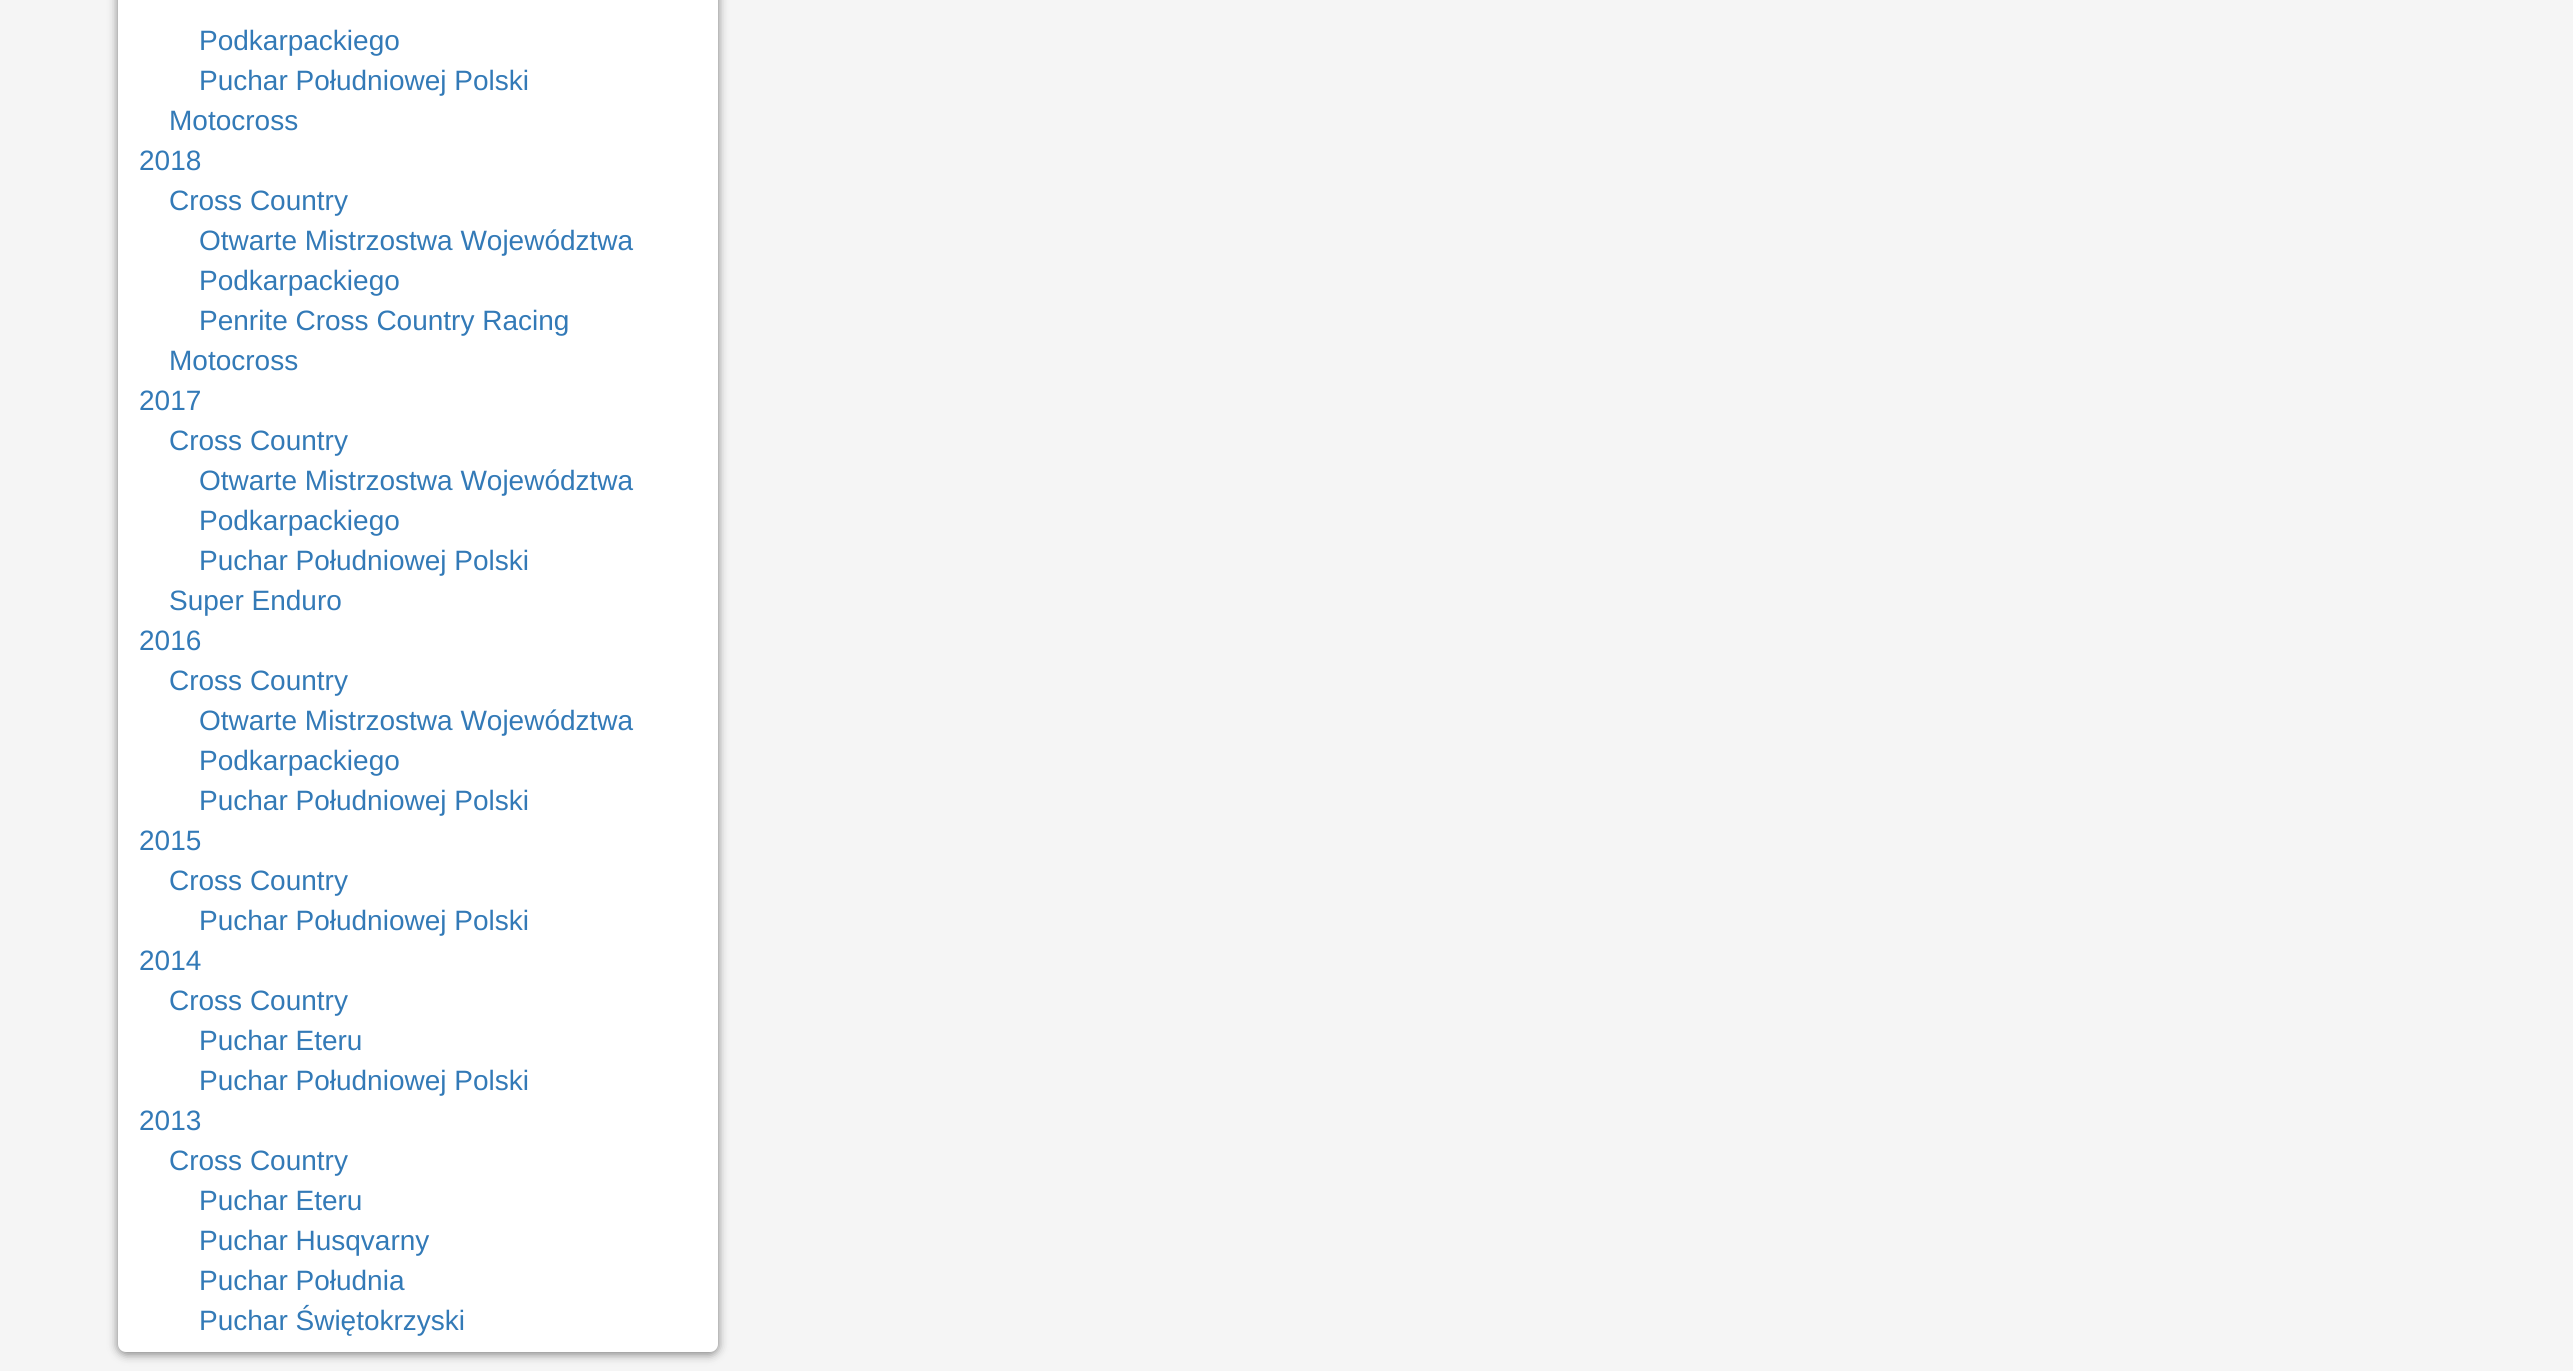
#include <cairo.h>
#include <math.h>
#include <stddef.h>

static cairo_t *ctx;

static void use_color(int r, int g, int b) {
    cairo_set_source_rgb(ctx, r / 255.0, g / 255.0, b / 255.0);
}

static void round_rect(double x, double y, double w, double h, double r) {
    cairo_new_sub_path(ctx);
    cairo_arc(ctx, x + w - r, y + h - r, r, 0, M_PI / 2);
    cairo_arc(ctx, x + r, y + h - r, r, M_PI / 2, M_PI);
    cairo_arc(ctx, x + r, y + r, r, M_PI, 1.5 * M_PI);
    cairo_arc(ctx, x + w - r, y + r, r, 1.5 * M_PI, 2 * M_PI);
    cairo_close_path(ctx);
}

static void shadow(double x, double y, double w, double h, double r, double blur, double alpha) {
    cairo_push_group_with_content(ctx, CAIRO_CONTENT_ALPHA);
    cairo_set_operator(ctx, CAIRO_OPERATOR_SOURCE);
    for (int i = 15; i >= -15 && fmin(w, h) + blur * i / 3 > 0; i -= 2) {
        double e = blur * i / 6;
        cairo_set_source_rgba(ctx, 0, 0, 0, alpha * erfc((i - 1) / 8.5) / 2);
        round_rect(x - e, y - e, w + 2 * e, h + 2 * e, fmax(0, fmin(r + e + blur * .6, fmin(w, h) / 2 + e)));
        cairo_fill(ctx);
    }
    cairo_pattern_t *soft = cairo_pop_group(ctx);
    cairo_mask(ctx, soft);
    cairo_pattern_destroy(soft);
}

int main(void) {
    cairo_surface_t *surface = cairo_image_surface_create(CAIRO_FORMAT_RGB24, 2573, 1371);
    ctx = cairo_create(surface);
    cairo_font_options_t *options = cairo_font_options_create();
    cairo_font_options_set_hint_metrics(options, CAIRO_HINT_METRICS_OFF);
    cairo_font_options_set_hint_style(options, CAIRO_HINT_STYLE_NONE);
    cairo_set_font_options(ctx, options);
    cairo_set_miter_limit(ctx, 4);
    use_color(245, 245, 245);
    cairo_paint(ctx);
    use_color(0, 0, 0);
    shadow(118, -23, 600, 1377, 8, 5, 0.5);
    use_color(255, 255, 255);
    round_rect(118, -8, 600, 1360, 8);
    cairo_fill(ctx);
    cairo_select_font_face(ctx, "Liberation Sans", CAIRO_FONT_SLANT_NORMAL, CAIRO_FONT_WEIGHT_NORMAL);
    cairo_set_font_size(ctx, 28);
    use_color(51, 122, 183);
    cairo_move_to(ctx, 199, 50);
    cairo_show_text(ctx, "Podkarpackiego");
    cairo_move_to(ctx, 199, 90);
    cairo_show_text(ctx, "Puchar Południowej Polski");
    cairo_move_to(ctx, 169, 130);
    cairo_show_text(ctx, "Motocross");
    cairo_move_to(ctx, 139, 170);
    cairo_show_text(ctx, "2018");
    cairo_move_to(ctx, 169, 210);
    cairo_show_text(ctx, "Cross Country");
    cairo_move_to(ctx, 199, 250);
    cairo_show_text(ctx, "Otwarte Mistrzostwa Województwa");
    cairo_move_to(ctx, 199, 290);
    cairo_show_text(ctx, "Podkarpackiego");
    cairo_move_to(ctx, 199, 330);
    cairo_show_text(ctx, "Penrite Cross Country Racing");
    cairo_move_to(ctx, 169, 370);
    cairo_show_text(ctx, "Motocross");
    cairo_move_to(ctx, 139, 410);
    cairo_show_text(ctx, "2017");
    cairo_move_to(ctx, 169, 450);
    cairo_show_text(ctx, "Cross Country");
    cairo_move_to(ctx, 199, 490);
    cairo_show_text(ctx, "Otwarte Mistrzostwa Województwa");
    cairo_move_to(ctx, 199, 530);
    cairo_show_text(ctx, "Podkarpackiego");
    cairo_move_to(ctx, 199, 570);
    cairo_show_text(ctx, "Puchar Południowej Polski");
    cairo_move_to(ctx, 169, 610);
    cairo_show_text(ctx, "Super Enduro");
    cairo_move_to(ctx, 139, 650);
    cairo_show_text(ctx, "2016");
    cairo_move_to(ctx, 169, 690);
    cairo_show_text(ctx, "Cross Country");
    cairo_move_to(ctx, 199, 730);
    cairo_show_text(ctx, "Otwarte Mistrzostwa Województwa");
    cairo_move_to(ctx, 199, 770);
    cairo_show_text(ctx, "Podkarpackiego");
    cairo_move_to(ctx, 199, 810);
    cairo_show_text(ctx, "Puchar Południowej Polski");
    cairo_move_to(ctx, 139, 850);
    cairo_show_text(ctx, "2015");
    cairo_move_to(ctx, 169, 890);
    cairo_show_text(ctx, "Cross Country");
    cairo_move_to(ctx, 199, 930);
    cairo_show_text(ctx, "Puchar Południowej Polski");
    cairo_move_to(ctx, 139, 970);
    cairo_show_text(ctx, "2014");
    cairo_move_to(ctx, 169, 1010);
    cairo_show_text(ctx, "Cross Country");
    cairo_move_to(ctx, 199, 1050);
    cairo_show_text(ctx, "Puchar Eteru");
    cairo_move_to(ctx, 199, 1090);
    cairo_show_text(ctx, "Puchar Południowej Polski");
    cairo_move_to(ctx, 139, 1130);
    cairo_show_text(ctx, "2013");
    cairo_move_to(ctx, 169, 1170);
    cairo_show_text(ctx, "Cross Country");
    cairo_move_to(ctx, 199, 1210);
    cairo_show_text(ctx, "Puchar Eteru");
    cairo_move_to(ctx, 199, 1250);
    cairo_show_text(ctx, "Puchar Husqvarny");
    cairo_move_to(ctx, 199, 1290);
    cairo_show_text(ctx, "Puchar Południa");
    cairo_move_to(ctx, 199, 1330);
    cairo_show_text(ctx, "Puchar Świętokrzyski");
    cairo_surface_write_to_png(surface, "result.png");
    cairo_font_options_destroy(options);
    cairo_destroy(ctx);
    cairo_surface_destroy(surface);
    return 0;
}
